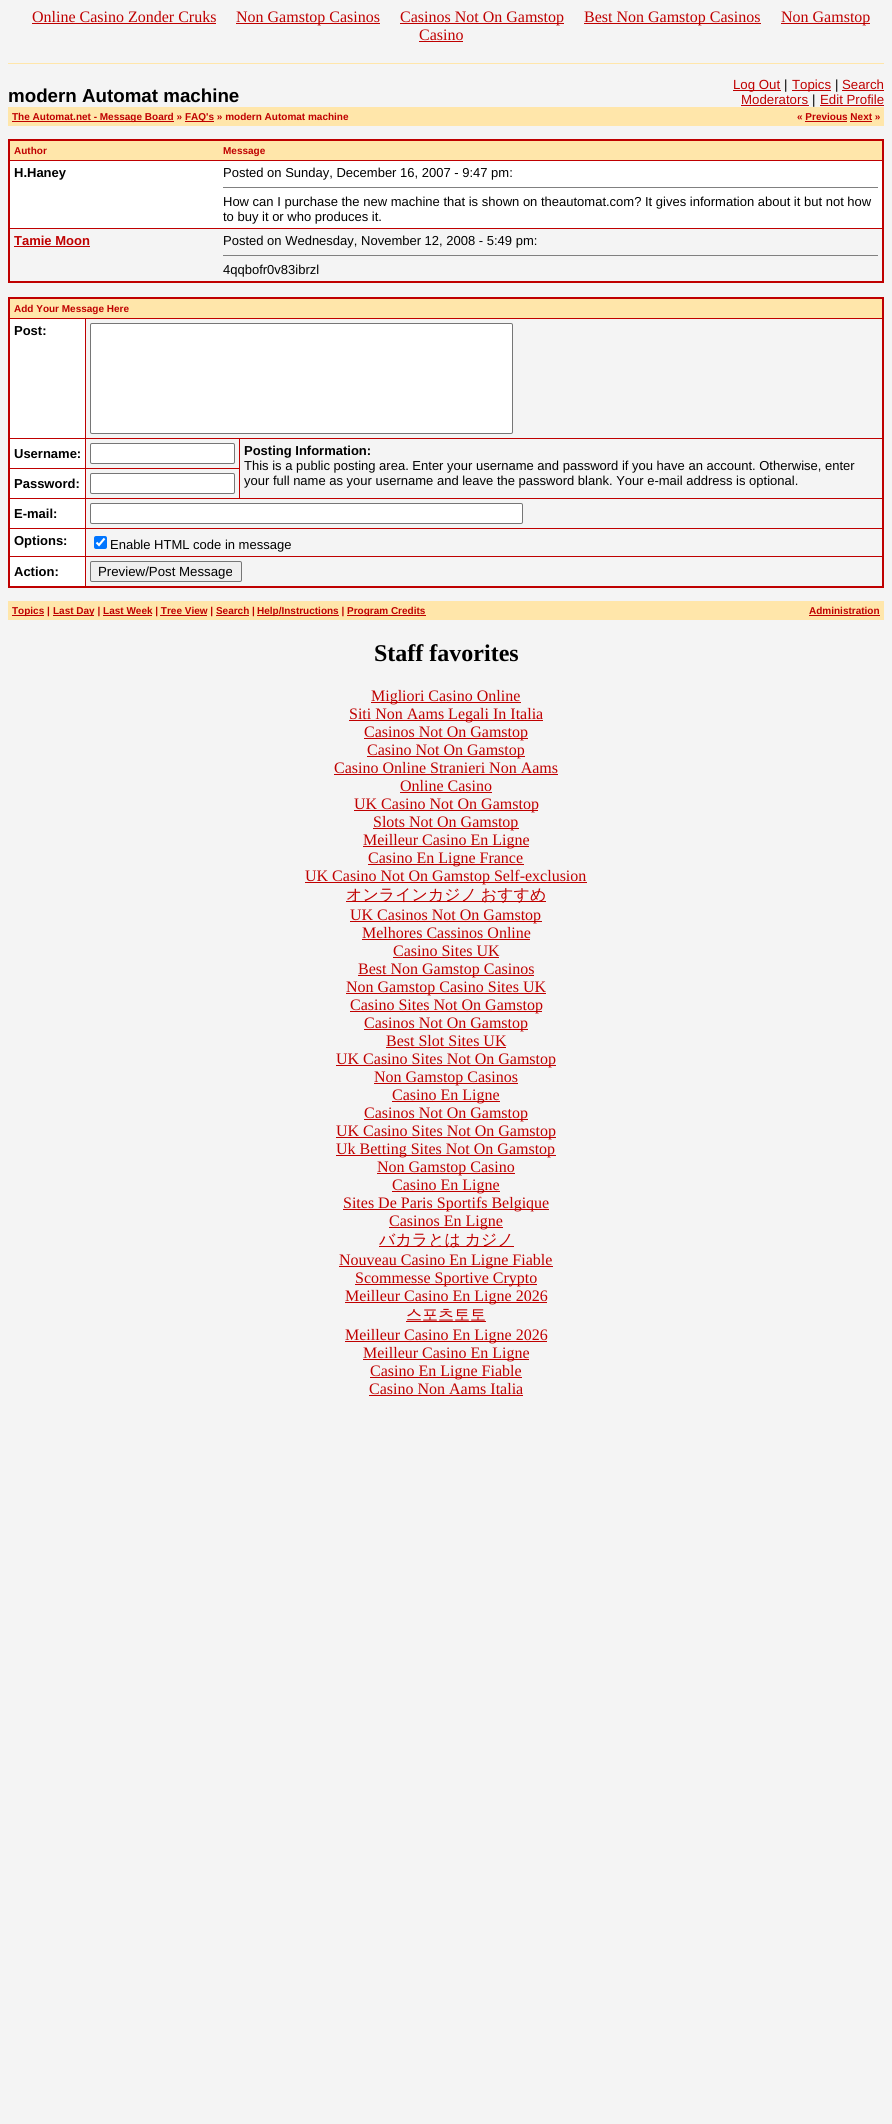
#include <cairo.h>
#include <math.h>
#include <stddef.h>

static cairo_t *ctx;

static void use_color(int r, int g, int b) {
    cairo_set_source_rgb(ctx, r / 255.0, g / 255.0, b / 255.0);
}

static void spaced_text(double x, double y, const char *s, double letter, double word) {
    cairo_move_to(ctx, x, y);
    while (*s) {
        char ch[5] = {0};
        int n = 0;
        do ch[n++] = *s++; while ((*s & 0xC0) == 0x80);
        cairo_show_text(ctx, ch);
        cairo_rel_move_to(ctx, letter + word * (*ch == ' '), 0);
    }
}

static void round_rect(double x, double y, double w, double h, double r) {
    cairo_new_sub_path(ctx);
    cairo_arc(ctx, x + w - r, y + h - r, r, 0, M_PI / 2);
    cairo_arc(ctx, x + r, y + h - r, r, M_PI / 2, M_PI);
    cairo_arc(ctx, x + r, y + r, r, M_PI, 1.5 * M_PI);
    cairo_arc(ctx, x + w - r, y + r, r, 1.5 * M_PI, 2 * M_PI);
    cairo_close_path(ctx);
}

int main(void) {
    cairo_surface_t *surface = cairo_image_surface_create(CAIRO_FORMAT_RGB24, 892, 2124);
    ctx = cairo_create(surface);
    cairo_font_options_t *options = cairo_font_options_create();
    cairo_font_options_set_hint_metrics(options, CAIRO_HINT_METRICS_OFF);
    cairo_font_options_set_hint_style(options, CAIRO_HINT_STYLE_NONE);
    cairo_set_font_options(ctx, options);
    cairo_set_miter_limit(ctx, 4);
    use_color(244, 244, 244);
    cairo_paint(ctx);
    cairo_select_font_face(ctx, "Liberation Serif", CAIRO_FONT_SLANT_NORMAL, CAIRO_FONT_WEIGHT_NORMAL);
    cairo_set_font_size(ctx, 16);
    use_color(191, 0, 0);
    cairo_move_to(ctx, 32, 22);
    cairo_show_text(ctx, "Online Casino Zonder Cruks");
    cairo_rectangle(ctx, 32, 23, 184, 1);
    cairo_fill(ctx);
    cairo_rectangle(ctx, 236, 23, 144, 1);
    cairo_fill(ctx);
    cairo_move_to(ctx, 236, 22);
    cairo_show_text(ctx, "Non Gamstop Casinos");
    cairo_rectangle(ctx, 400, 23, 164, 1);
    cairo_fill(ctx);
    cairo_move_to(ctx, 400, 22);
    cairo_show_text(ctx, "Casinos Not On Gamstop");
    cairo_rectangle(ctx, 584, 23, 177, 1);
    cairo_fill(ctx);
    cairo_move_to(ctx, 584, 22);
    cairo_show_text(ctx, "Best Non Gamstop Casinos");
    cairo_rectangle(ctx, 781, 23, 89, 1);
    cairo_fill(ctx);
    cairo_move_to(ctx, 781, 22);
    cairo_show_text(ctx, "Non Gamstop");
    cairo_move_to(ctx, 419, 40);
    cairo_show_text(ctx, "Casino");
    cairo_rectangle(ctx, 419, 41, 44, 1);
    cairo_fill(ctx);
    use_color(255, 230, 170);
    cairo_rectangle(ctx, 8, 63, 876, 1);
    cairo_fill(ctx);
    cairo_select_font_face(ctx, "Liberation Sans", CAIRO_FONT_SLANT_NORMAL, CAIRO_FONT_WEIGHT_BOLD);
    cairo_set_font_size(ctx, 18.75);
    use_color(0, 0, 0);
    cairo_move_to(ctx, 8, 102);
    cairo_show_text(ctx, "modern Automat machine");
    use_color(191, 0, 0);
    cairo_rectangle(ctx, 733, 90, 48, 1);
    cairo_fill(ctx);
    cairo_select_font_face(ctx, "Liberation Sans", CAIRO_FONT_SLANT_NORMAL, CAIRO_FONT_WEIGHT_NORMAL);
    cairo_set_font_size(ctx, 13.25);
    cairo_move_to(ctx, 733, 89);
    cairo_show_text(ctx, "Log Out");
    use_color(0, 0, 0);
    cairo_move_to(ctx, 784, 89);
    cairo_show_text(ctx, "|");
    use_color(191, 0, 0);
    cairo_rectangle(ctx, 792, 90, 39, 1);
    cairo_fill(ctx);
    cairo_move_to(ctx, 792, 89);
    cairo_show_text(ctx, "Topics");
    use_color(0, 0, 0);
    cairo_move_to(ctx, 835, 89);
    cairo_show_text(ctx, "|");
    use_color(191, 0, 0);
    cairo_move_to(ctx, 842, 89);
    cairo_show_text(ctx, "Search");
    cairo_rectangle(ctx, 842, 90, 42, 1);
    cairo_fill(ctx);
    cairo_move_to(ctx, 741, 104);
    cairo_show_text(ctx, "Moderators");
    cairo_rectangle(ctx, 741, 105, 68, 1);
    cairo_fill(ctx);
    use_color(0, 0, 0);
    cairo_move_to(ctx, 812, 104);
    cairo_show_text(ctx, "|");
    use_color(191, 0, 0);
    cairo_move_to(ctx, 820, 104);
    cairo_show_text(ctx, "Edit Profile");
    cairo_rectangle(ctx, 820, 105, 64, 1);
    cairo_fill(ctx);
    use_color(255, 230, 170);
    cairo_rectangle(ctx, 8, 107, 876, 19);
    cairo_fill(ctx);
    use_color(191, 0, 0);
    cairo_rectangle(ctx, 12, 121, 162, 1);
    cairo_fill(ctx);
    cairo_select_font_face(ctx, "Liberation Sans", CAIRO_FONT_SLANT_NORMAL, CAIRO_FONT_WEIGHT_BOLD);
    cairo_set_font_size(ctx, 10);
    cairo_move_to(ctx, 12, 120);
    cairo_show_text(ctx, "The Automat.net - Message Board »");
    cairo_rectangle(ctx, 185, 121, 29, 1);
    cairo_fill(ctx);
    cairo_move_to(ctx, 185, 120);
    cairo_show_text(ctx, "FAQ's » modern Automat machine");
    cairo_move_to(ctx, 797, 120);
    cairo_show_text(ctx, "« Previous Next »");
    cairo_rectangle(ctx, 805, 121, 42, 1);
    cairo_fill(ctx);
    cairo_rectangle(ctx, 850, 121, 22, 1);
    cairo_fill(ctx);
    cairo_rectangle(ctx, 8, 139, 876, 144);
    cairo_fill(ctx);
    use_color(255, 230, 170);
    cairo_rectangle(ctx, 10, 141, 872, 19);
    cairo_fill(ctx);
    use_color(191, 0, 0);
    cairo_move_to(ctx, 14, 154);
    cairo_show_text(ctx, "Author");
    cairo_move_to(ctx, 223, 154);
    cairo_show_text(ctx, "Message");
    use_color(255, 255, 255);
    cairo_rectangle(ctx, 10, 161, 872, 67);
    cairo_fill(ctx);
    cairo_set_font_size(ctx, 13);
    use_color(0, 0, 0);
    cairo_move_to(ctx, 14, 177);
    cairo_show_text(ctx, "H.Haney");
    cairo_select_font_face(ctx, "Liberation Sans", CAIRO_FONT_SLANT_NORMAL, CAIRO_FONT_WEIGHT_NORMAL);
    cairo_move_to(ctx, 223, 177);
    cairo_show_text(ctx, "Posted on Sunday, December 16, 2007 - 9:47 pm:");
    use_color(128, 128, 128);
    cairo_rectangle(ctx, 223, 187, 655, 1);
    cairo_fill(ctx);
    use_color(0, 0, 0);
    cairo_move_to(ctx, 223, 206);
    cairo_show_text(ctx, "How can I purchase the new machine that is shown on theautomat.com? It gives information about it but not how");
    cairo_move_to(ctx, 223, 221);
    cairo_show_text(ctx, "to buy it or who produces it.");
    use_color(244, 244, 244);
    cairo_rectangle(ctx, 10, 229, 872, 52);
    cairo_fill(ctx);
    cairo_select_font_face(ctx, "Liberation Sans", CAIRO_FONT_SLANT_NORMAL, CAIRO_FONT_WEIGHT_BOLD);
    use_color(191, 0, 0);
    cairo_move_to(ctx, 14, 245);
    cairo_show_text(ctx, "Tamie Moon");
    cairo_rectangle(ctx, 14, 246, 76, 1);
    cairo_fill(ctx);
    cairo_select_font_face(ctx, "Liberation Sans", CAIRO_FONT_SLANT_NORMAL, CAIRO_FONT_WEIGHT_NORMAL);
    use_color(0, 0, 0);
    cairo_move_to(ctx, 223, 245);
    cairo_show_text(ctx, "Posted on Wednesday, November 12, 2008 - 5:49 pm:");
    use_color(128, 128, 128);
    cairo_rectangle(ctx, 223, 255, 655, 1);
    cairo_fill(ctx);
    use_color(0, 0, 0);
    cairo_move_to(ctx, 223, 274);
    cairo_show_text(ctx, "4qqbofr0v83ibrzl");
    use_color(191, 0, 0);
    cairo_rectangle(ctx, 8, 297, 876, 291);
    cairo_fill(ctx);
    use_color(255, 230, 170);
    cairo_rectangle(ctx, 10, 299, 872, 19);
    cairo_fill(ctx);
    cairo_select_font_face(ctx, "Liberation Sans", CAIRO_FONT_SLANT_NORMAL, CAIRO_FONT_WEIGHT_BOLD);
    cairo_set_font_size(ctx, 10);
    use_color(191, 0, 0);
    cairo_move_to(ctx, 14, 312);
    cairo_show_text(ctx, "Add Your Message Here");
    use_color(255, 255, 255);
    cairo_rectangle(ctx, 10, 319, 75, 119);
    cairo_fill(ctx);
    cairo_set_font_size(ctx, 13);
    use_color(0, 0, 0);
    cairo_move_to(ctx, 14, 335);
    cairo_show_text(ctx, "Post:");
    use_color(244, 244, 244);
    cairo_rectangle(ctx, 86, 319, 796, 119);
    cairo_fill(ctx);
    use_color(255, 255, 255);
    round_rect(90.5, 323.5, 422, 110, 1.5);
    cairo_fill_preserve(ctx);
    use_color(118, 118, 118);
    cairo_set_line_width(ctx, 1);
    cairo_stroke(ctx);
    use_color(255, 255, 255);
    cairo_rectangle(ctx, 10, 439, 75, 29);
    cairo_fill(ctx);
    use_color(0, 0, 0);
    cairo_move_to(ctx, 14, 458);
    cairo_show_text(ctx, "Username:");
    use_color(244, 244, 244);
    cairo_rectangle(ctx, 86, 439, 153, 29);
    cairo_fill(ctx);
    use_color(255, 255, 255);
    round_rect(90.5, 443.5, 144, 20, 1.5);
    cairo_fill_preserve(ctx);
    use_color(118, 118, 118);
    cairo_stroke(ctx);
    use_color(244, 244, 244);
    cairo_rectangle(ctx, 240, 439, 642, 59);
    cairo_fill(ctx);
    use_color(0, 0, 0);
    cairo_move_to(ctx, 244, 455);
    cairo_show_text(ctx, "Posting Information:");
    cairo_select_font_face(ctx, "Liberation Sans", CAIRO_FONT_SLANT_NORMAL, CAIRO_FONT_WEIGHT_NORMAL);
    cairo_move_to(ctx, 244, 470);
    cairo_show_text(ctx, "This is a public posting area. Enter your username and password if you have an account. Otherwise, enter");
    cairo_move_to(ctx, 244, 485);
    cairo_show_text(ctx, "your full name as your username and leave the password blank. Your e-mail address is optional.");
    use_color(255, 255, 255);
    cairo_rectangle(ctx, 10, 469, 75, 29);
    cairo_fill(ctx);
    cairo_select_font_face(ctx, "Liberation Sans", CAIRO_FONT_SLANT_NORMAL, CAIRO_FONT_WEIGHT_BOLD);
    use_color(0, 0, 0);
    cairo_move_to(ctx, 14, 488);
    cairo_show_text(ctx, "Password:");
    use_color(244, 244, 244);
    cairo_rectangle(ctx, 86, 469, 153, 29);
    cairo_fill(ctx);
    use_color(255, 255, 255);
    round_rect(90.5, 473.5, 144, 20, 1.5);
    cairo_fill_preserve(ctx);
    use_color(118, 118, 118);
    cairo_stroke(ctx);
    use_color(255, 255, 255);
    cairo_rectangle(ctx, 10, 499, 75, 29);
    cairo_fill(ctx);
    use_color(0, 0, 0);
    cairo_move_to(ctx, 14, 518);
    cairo_show_text(ctx, "E-mail:");
    use_color(244, 244, 244);
    cairo_rectangle(ctx, 86, 499, 796, 29);
    cairo_fill(ctx);
    use_color(255, 255, 255);
    round_rect(90.5, 503.5, 432, 20, 1.5);
    cairo_fill_preserve(ctx);
    use_color(118, 118, 118);
    cairo_stroke(ctx);
    use_color(255, 255, 255);
    cairo_rectangle(ctx, 10, 529, 75, 27);
    cairo_fill(ctx);
    use_color(0, 0, 0);
    cairo_move_to(ctx, 14, 545);
    cairo_show_text(ctx, "Options:");
    use_color(244, 244, 244);
    cairo_rectangle(ctx, 86, 529, 796, 27);
    cairo_fill(ctx);
    use_color(0, 117, 255);
    round_rect(94, 536, 13, 13, 2);
    cairo_fill(ctx);
    cairo_new_path(ctx);
    cairo_move_to(ctx, 96.5, 542.5);
    cairo_line_to(ctx, 99, 545);
    cairo_line_to(ctx, 104.5, 538.5);
    use_color(255, 255, 255);
    cairo_set_line_width(ctx, 2.1);
    cairo_stroke(ctx);
    cairo_select_font_face(ctx, "Liberation Sans", CAIRO_FONT_SLANT_NORMAL, CAIRO_FONT_WEIGHT_NORMAL);
    use_color(0, 0, 0);
    cairo_move_to(ctx, 110, 549);
    cairo_show_text(ctx, "Enable HTML code in message");
    use_color(255, 255, 255);
    cairo_rectangle(ctx, 10, 557, 75, 29);
    cairo_fill(ctx);
    cairo_select_font_face(ctx, "Liberation Sans", CAIRO_FONT_SLANT_NORMAL, CAIRO_FONT_WEIGHT_BOLD);
    use_color(0, 0, 0);
    cairo_move_to(ctx, 14, 576);
    cairo_show_text(ctx, "Action:");
    use_color(244, 244, 244);
    cairo_rectangle(ctx, 86, 557, 796, 29);
    cairo_fill(ctx);
    use_color(239, 239, 239);
    round_rect(90.5, 561.5, 151, 20, 1.5);
    cairo_fill_preserve(ctx);
    use_color(118, 118, 118);
    cairo_set_line_width(ctx, 1);
    cairo_stroke(ctx);
    cairo_select_font_face(ctx, "Liberation Sans", CAIRO_FONT_SLANT_NORMAL, CAIRO_FONT_WEIGHT_NORMAL);
    cairo_set_font_size(ctx, 13.25);
    use_color(0, 0, 0);
    cairo_move_to(ctx, 98, 576);
    cairo_show_text(ctx, "Preview/Post Message");
    use_color(255, 230, 170);
    cairo_rectangle(ctx, 8, 601, 876, 19);
    cairo_fill(ctx);
    use_color(191, 0, 0);
    cairo_rectangle(ctx, 12, 615, 32, 1);
    cairo_fill(ctx);
    cairo_select_font_face(ctx, "Liberation Sans", CAIRO_FONT_SLANT_NORMAL, CAIRO_FONT_WEIGHT_BOLD);
    cairo_set_font_size(ctx, 10);
    cairo_move_to(ctx, 12, 614);
    cairo_show_text(ctx, "Topics |");
    cairo_rectangle(ctx, 53, 615, 41, 1);
    cairo_fill(ctx);
    cairo_move_to(ctx, 53, 614);
    cairo_show_text(ctx, "Last Day | Last Week | Tree View | Search |");
    cairo_rectangle(ctx, 103, 615, 49, 1);
    cairo_fill(ctx);
    cairo_rectangle(ctx, 160, 615, 47, 1);
    cairo_fill(ctx);
    cairo_rectangle(ctx, 216, 615, 33, 1);
    cairo_fill(ctx);
    cairo_rectangle(ctx, 257, 615, 82, 1);
    cairo_fill(ctx);
    cairo_move_to(ctx, 257, 614);
    cairo_show_text(ctx, "Help/Instructions |");
    cairo_rectangle(ctx, 347, 615, 79, 1);
    cairo_fill(ctx);
    cairo_move_to(ctx, 347, 614);
    cairo_show_text(ctx, "Program Credits");
    cairo_move_to(ctx, 809, 614);
    cairo_show_text(ctx, "Administration");
    cairo_rectangle(ctx, 809, 615, 71, 1);
    cairo_fill(ctx);
    cairo_select_font_face(ctx, "Liberation Serif", CAIRO_FONT_SLANT_NORMAL, CAIRO_FONT_WEIGHT_BOLD);
    cairo_set_font_size(ctx, 24);
    use_color(0, 0, 0);
    cairo_move_to(ctx, 374, 661);
    cairo_show_text(ctx, "Staff favorites");
    use_color(191, 0, 0);
    cairo_rectangle(ctx, 371, 702, 150, 1);
    cairo_fill(ctx);
    cairo_select_font_face(ctx, "Liberation Serif", CAIRO_FONT_SLANT_NORMAL, CAIRO_FONT_WEIGHT_NORMAL);
    cairo_set_font_size(ctx, 16);
    cairo_move_to(ctx, 371, 701);
    cairo_show_text(ctx, "Migliori Casino Online");
    cairo_rectangle(ctx, 349, 720, 194, 1);
    cairo_fill(ctx);
    cairo_move_to(ctx, 349, 719);
    cairo_show_text(ctx, "Siti Non Aams Legali In Italia");
    cairo_rectangle(ctx, 364, 738, 164, 1);
    cairo_fill(ctx);
    cairo_move_to(ctx, 364, 737);
    cairo_show_text(ctx, "Casinos Not On Gamstop");
    cairo_rectangle(ctx, 367, 756, 158, 1);
    cairo_fill(ctx);
    cairo_move_to(ctx, 367, 755);
    cairo_show_text(ctx, "Casino Not On Gamstop");
    cairo_move_to(ctx, 334, 773);
    cairo_show_text(ctx, "Casino Online Stranieri Non Aams");
    cairo_rectangle(ctx, 334, 774, 224, 1);
    cairo_fill(ctx);
    cairo_move_to(ctx, 400, 791);
    cairo_show_text(ctx, "Online Casino");
    cairo_rectangle(ctx, 400, 792, 92, 1);
    cairo_fill(ctx);
    cairo_rectangle(ctx, 354, 810, 184, 1);
    cairo_fill(ctx);
    cairo_move_to(ctx, 354, 809);
    cairo_show_text(ctx, "UK Casino Not On Gamstop");
    cairo_rectangle(ctx, 373, 828, 146, 1);
    cairo_fill(ctx);
    cairo_move_to(ctx, 373, 827);
    cairo_show_text(ctx, "Slots Not On Gamstop");
    cairo_rectangle(ctx, 363, 846, 166, 1);
    cairo_fill(ctx);
    cairo_move_to(ctx, 363, 845);
    cairo_show_text(ctx, "Meilleur Casino En Ligne");
    cairo_rectangle(ctx, 368, 864, 156, 1);
    cairo_fill(ctx);
    cairo_move_to(ctx, 368, 863);
    cairo_show_text(ctx, "Casino En Ligne France");
    cairo_rectangle(ctx, 305, 882, 282, 1);
    cairo_fill(ctx);
    cairo_move_to(ctx, 305, 881);
    cairo_show_text(ctx, "UK Casino Not On Gamstop Self-exclusion");
    cairo_rectangle(ctx, 346, 901, 200, 1);
    cairo_fill(ctx);
    cairo_select_font_face(ctx, "WenQuanYi Zen Hei Medium", CAIRO_FONT_SLANT_NORMAL, CAIRO_FONT_WEIGHT_NORMAL);
    spaced_text(346, 900, "オンラインカジノ おすすめ", 0, -1);
    cairo_rectangle(ctx, 350, 921, 192, 1);
    cairo_fill(ctx);
    cairo_select_font_face(ctx, "Liberation Serif", CAIRO_FONT_SLANT_NORMAL, CAIRO_FONT_WEIGHT_NORMAL);
    cairo_move_to(ctx, 350, 920);
    cairo_show_text(ctx, "UK Casinos Not On Gamstop");
    cairo_move_to(ctx, 362, 938);
    cairo_show_text(ctx, "Melhores Cassinos Online");
    cairo_rectangle(ctx, 362, 939, 168, 1);
    cairo_fill(ctx);
    cairo_move_to(ctx, 393, 956);
    cairo_show_text(ctx, "Casino Sites UK");
    cairo_rectangle(ctx, 393, 957, 106, 1);
    cairo_fill(ctx);
    cairo_rectangle(ctx, 358, 975, 176, 1);
    cairo_fill(ctx);
    cairo_move_to(ctx, 358, 974);
    cairo_show_text(ctx, "Best Non Gamstop Casinos");
    cairo_rectangle(ctx, 346, 993, 200, 1);
    cairo_fill(ctx);
    cairo_move_to(ctx, 346, 992);
    cairo_show_text(ctx, "Non Gamstop Casino Sites UK");
    cairo_rectangle(ctx, 350, 1011, 192, 1);
    cairo_fill(ctx);
    cairo_move_to(ctx, 350, 1010);
    cairo_show_text(ctx, "Casino Sites Not On Gamstop");
    cairo_rectangle(ctx, 364, 1029, 164, 1);
    cairo_fill(ctx);
    cairo_move_to(ctx, 364, 1028);
    cairo_show_text(ctx, "Casinos Not On Gamstop");
    cairo_move_to(ctx, 386, 1046);
    cairo_show_text(ctx, "Best Slot Sites UK");
    cairo_rectangle(ctx, 386, 1047, 120, 1);
    cairo_fill(ctx);
    cairo_rectangle(ctx, 336, 1065, 220, 1);
    cairo_fill(ctx);
    cairo_move_to(ctx, 336, 1064);
    cairo_show_text(ctx, "UK Casino Sites Not On Gamstop");
    cairo_rectangle(ctx, 374, 1083, 144, 1);
    cairo_fill(ctx);
    cairo_move_to(ctx, 374, 1082);
    cairo_show_text(ctx, "Non Gamstop Casinos");
    cairo_rectangle(ctx, 392, 1101, 108, 1);
    cairo_fill(ctx);
    cairo_move_to(ctx, 392, 1100);
    cairo_show_text(ctx, "Casino En Ligne");
    cairo_rectangle(ctx, 364, 1119, 164, 1);
    cairo_fill(ctx);
    cairo_move_to(ctx, 364, 1118);
    cairo_show_text(ctx, "Casinos Not On Gamstop");
    cairo_rectangle(ctx, 336, 1137, 220, 1);
    cairo_fill(ctx);
    cairo_move_to(ctx, 336, 1136);
    cairo_show_text(ctx, "UK Casino Sites Not On Gamstop");
    cairo_rectangle(ctx, 336, 1155, 220, 1);
    cairo_fill(ctx);
    cairo_move_to(ctx, 336, 1154);
    cairo_show_text(ctx, "Uk Betting Sites Not On Gamstop");
    cairo_rectangle(ctx, 377, 1173, 138, 1);
    cairo_fill(ctx);
    cairo_move_to(ctx, 377, 1172);
    cairo_show_text(ctx, "Non Gamstop Casino");
    cairo_rectangle(ctx, 392, 1191, 108, 1);
    cairo_fill(ctx);
    cairo_move_to(ctx, 392, 1190);
    cairo_show_text(ctx, "Casino En Ligne");
    cairo_rectangle(ctx, 343, 1209, 206, 1);
    cairo_fill(ctx);
    cairo_move_to(ctx, 343, 1208);
    cairo_show_text(ctx, "Sites De Paris Sportifs Belgique");
    cairo_rectangle(ctx, 389, 1227, 114, 1);
    cairo_fill(ctx);
    cairo_move_to(ctx, 389, 1226);
    cairo_show_text(ctx, "Casinos En Ligne");
    cairo_rectangle(ctx, 379, 1246, 135, 1);
    cairo_fill(ctx);
    cairo_select_font_face(ctx, "WenQuanYi Zen Hei Medium", CAIRO_FONT_SLANT_NORMAL, CAIRO_FONT_WEIGHT_NORMAL);
    spaced_text(379, 1245, "バカラとは カジノ", 0, -1);
    cairo_rectangle(ctx, 339, 1266, 214, 1);
    cairo_fill(ctx);
    cairo_select_font_face(ctx, "Liberation Serif", CAIRO_FONT_SLANT_NORMAL, CAIRO_FONT_WEIGHT_NORMAL);
    cairo_move_to(ctx, 339, 1265);
    cairo_show_text(ctx, "Nouveau Casino En Ligne Fiable");
    cairo_rectangle(ctx, 355, 1284, 182, 1);
    cairo_fill(ctx);
    cairo_move_to(ctx, 355, 1283);
    cairo_show_text(ctx, "Scommesse Sportive Crypto");
    cairo_rectangle(ctx, 345, 1302, 202, 1);
    cairo_fill(ctx);
    cairo_move_to(ctx, 345, 1301);
    cairo_show_text(ctx, "Meilleur Casino En Ligne 2026");
    cairo_select_font_face(ctx, "WenQuanYi Zen Hei Medium", CAIRO_FONT_SLANT_NORMAL, CAIRO_FONT_WEIGHT_NORMAL);
    cairo_move_to(ctx, 406, 1320);
    cairo_show_text(ctx, "스포츠토토");
    cairo_rectangle(ctx, 406, 1321, 80, 1);
    cairo_fill(ctx);
    cairo_rectangle(ctx, 345, 1341, 202, 1);
    cairo_fill(ctx);
    cairo_select_font_face(ctx, "Liberation Serif", CAIRO_FONT_SLANT_NORMAL, CAIRO_FONT_WEIGHT_NORMAL);
    cairo_move_to(ctx, 345, 1340);
    cairo_show_text(ctx, "Meilleur Casino En Ligne 2026");
    cairo_rectangle(ctx, 363, 1359, 166, 1);
    cairo_fill(ctx);
    cairo_move_to(ctx, 363, 1358);
    cairo_show_text(ctx, "Meilleur Casino En Ligne");
    cairo_rectangle(ctx, 370, 1377, 152, 1);
    cairo_fill(ctx);
    cairo_move_to(ctx, 370, 1376);
    cairo_show_text(ctx, "Casino En Ligne Fiable");
    cairo_move_to(ctx, 369, 1394);
    cairo_show_text(ctx, "Casino Non Aams Italia");
    cairo_rectangle(ctx, 369, 1395, 154, 1);
    cairo_fill(ctx);
    cairo_surface_write_to_png(surface, "result.png");
    cairo_font_options_destroy(options);
    cairo_destroy(ctx);
    cairo_surface_destroy(surface);
    return 0;
}
